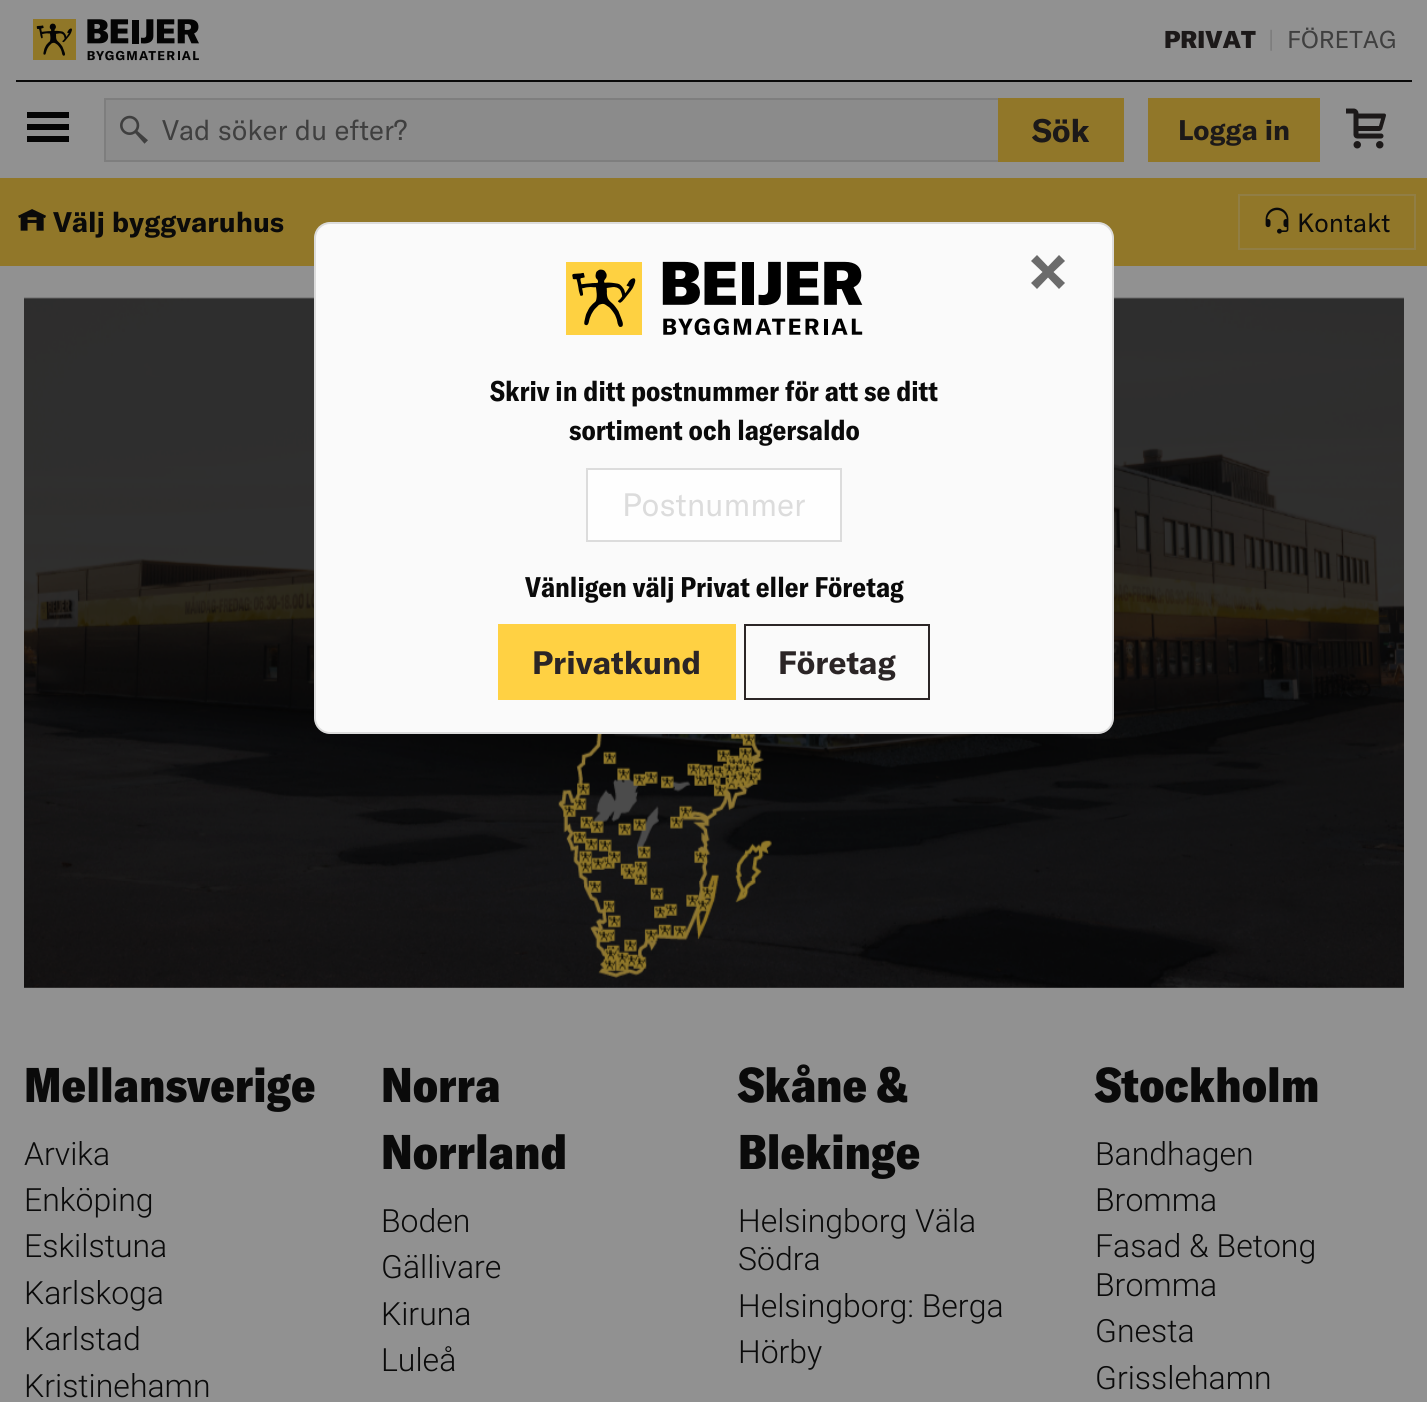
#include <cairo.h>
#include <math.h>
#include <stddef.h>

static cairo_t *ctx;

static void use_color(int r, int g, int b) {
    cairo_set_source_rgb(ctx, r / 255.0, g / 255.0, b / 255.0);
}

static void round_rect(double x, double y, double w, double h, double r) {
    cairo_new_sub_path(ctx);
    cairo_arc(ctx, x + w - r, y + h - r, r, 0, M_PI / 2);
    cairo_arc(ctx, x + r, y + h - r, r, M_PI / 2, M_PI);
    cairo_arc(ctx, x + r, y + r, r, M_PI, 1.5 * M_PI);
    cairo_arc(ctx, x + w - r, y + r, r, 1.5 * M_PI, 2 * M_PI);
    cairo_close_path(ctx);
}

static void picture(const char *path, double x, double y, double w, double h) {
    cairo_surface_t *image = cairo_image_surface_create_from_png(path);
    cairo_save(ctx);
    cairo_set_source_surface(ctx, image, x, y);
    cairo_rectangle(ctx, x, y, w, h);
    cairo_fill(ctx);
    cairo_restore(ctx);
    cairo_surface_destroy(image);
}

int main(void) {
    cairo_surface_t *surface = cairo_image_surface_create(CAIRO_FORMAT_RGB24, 1427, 1402);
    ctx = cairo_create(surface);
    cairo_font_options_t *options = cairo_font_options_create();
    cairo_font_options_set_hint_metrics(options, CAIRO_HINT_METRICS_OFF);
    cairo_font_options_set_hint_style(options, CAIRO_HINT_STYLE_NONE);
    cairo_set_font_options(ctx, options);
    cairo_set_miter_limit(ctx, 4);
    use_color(145, 145, 145);
    cairo_paint(ctx);
    use_color(10, 10, 10);
    cairo_rectangle(ctx, 16, 80, 1396, 2);
    cairo_fill(ctx);
    picture("img1.png", 33, 19, 166, 42);
    cairo_select_font_face(ctx, "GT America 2 Black", CAIRO_FONT_SLANT_NORMAL, CAIRO_FONT_WEIGHT_NORMAL);
    cairo_set_font_size(ctx, 24);
    use_color(28, 25, 25);
    cairo_move_to(ctx, 1164, 48);
    cairo_show_text(ctx, "PRIVAT");
    cairo_select_font_face(ctx, "GT America", CAIRO_FONT_SLANT_NORMAL, CAIRO_FONT_WEIGHT_NORMAL);
    use_color(126, 126, 126);
    cairo_move_to(ctx, 1268, 48);
    cairo_show_text(ctx, "|");
    use_color(63, 63, 63);
    cairo_move_to(ctx, 1287, 48);
    cairo_show_text(ctx, "FÖRETAG");
    use_color(5, 5, 5);
    cairo_new_path(ctx);
    cairo_move_to(ctx, 27, 112);
    cairo_line_to(ctx, 69, 112);
    cairo_line_to(ctx, 69, 118);
    cairo_line_to(ctx, 27, 118);
    cairo_close_path(ctx);
    cairo_move_to(ctx, 27, 124);
    cairo_line_to(ctx, 69, 124);
    cairo_line_to(ctx, 69, 130);
    cairo_line_to(ctx, 27, 130);
    cairo_close_path(ctx);
    cairo_move_to(ctx, 27, 136);
    cairo_line_to(ctx, 69, 136);
    cairo_line_to(ctx, 69, 142);
    cairo_line_to(ctx, 27, 142);
    cairo_close_path(ctx);
    cairo_fill(ctx);
    use_color(139, 139, 139);
    cairo_rectangle(ctx, 106, 100, 892, 60);
    cairo_fill(ctx);
    cairo_rectangle(ctx, 105, 99, 1018, 62);
    use_color(126, 126, 126);
    cairo_stroke(ctx);
    picture("img2.png", 120, 115, 28, 29);
    cairo_set_font_size(ctx, 28);
    use_color(63, 63, 63);
    cairo_move_to(ctx, 162, 140);
    cairo_show_text(ctx, "Vad söker du efter?");
    use_color(145, 119, 41);
    cairo_rectangle(ctx, 998, 98, 126, 64);
    cairo_fill(ctx);
    cairo_select_font_face(ctx, "GT America", CAIRO_FONT_SLANT_NORMAL, CAIRO_FONT_WEIGHT_BOLD);
    cairo_set_font_size(ctx, 32);
    use_color(28, 25, 25);
    cairo_move_to(ctx, 1032, 142);
    cairo_show_text(ctx, "Sök");
    use_color(145, 119, 41);
    cairo_rectangle(ctx, 1148, 98, 172, 64);
    cairo_fill(ctx);
    cairo_set_font_size(ctx, 28);
    use_color(28, 25, 25);
    cairo_move_to(ctx, 1178, 140);
    cairo_show_text(ctx, "Logga in");
    picture("img3.png", 1346, 108, 40, 41);
    use_color(145, 119, 41);
    cairo_rectangle(ctx, 0, 178, 1427, 88);
    cairo_fill(ctx);
    picture("img4.png", 18, 209, 28, 22);
    use_color(10, 10, 10);
    cairo_move_to(ctx, 53, 232);
    cairo_show_text(ctx, "Välj byggvaruhus");
    cairo_rectangle(ctx, 1239, 195, 176, 54);
    use_color(145, 126, 69);
    cairo_stroke(ctx);
    picture("img5.png", 1265, 207, 24, 27);
    cairo_select_font_face(ctx, "GT America", CAIRO_FONT_SLANT_NORMAL, CAIRO_FONT_WEIGHT_NORMAL);
    cairo_set_font_size(ctx, 26);
    use_color(10, 10, 10);
    cairo_move_to(ctx, 1297, 232);
    cairo_show_text(ctx, "Kontakt");
    picture("img6.png", 24, 297, 1380, 691);
    cairo_select_font_face(ctx, "GT America Black", CAIRO_FONT_SLANT_NORMAL, CAIRO_FONT_WEIGHT_NORMAL);
    cairo_set_font_size(ctx, 48);
    cairo_move_to(ctx, 24, 1102);
    cairo_show_text(ctx, "Mellansverige");
    cairo_select_font_face(ctx, "Roboto Light", CAIRO_FONT_SLANT_NORMAL, CAIRO_FONT_WEIGHT_NORMAL);
    cairo_set_font_size(ctx, 32);
    cairo_move_to(ctx, 24, 1165);
    cairo_show_text(ctx, "Arvika");
    cairo_move_to(ctx, 24, 1211);
    cairo_show_text(ctx, "Enköping");
    cairo_move_to(ctx, 24, 1257);
    cairo_show_text(ctx, "Eskilstuna");
    cairo_move_to(ctx, 24, 1304);
    cairo_show_text(ctx, "Karlskoga");
    cairo_move_to(ctx, 24, 1350);
    cairo_show_text(ctx, "Karlstad");
    cairo_move_to(ctx, 24, 1397);
    cairo_show_text(ctx, "Kristinehamn");
    cairo_select_font_face(ctx, "GT America Black", CAIRO_FONT_SLANT_NORMAL, CAIRO_FONT_WEIGHT_NORMAL);
    cairo_set_font_size(ctx, 48);
    cairo_move_to(ctx, 381, 1102);
    cairo_show_text(ctx, "Norra");
    cairo_move_to(ctx, 381, 1169);
    cairo_show_text(ctx, "Norrland");
    cairo_select_font_face(ctx, "Roboto Light", CAIRO_FONT_SLANT_NORMAL, CAIRO_FONT_WEIGHT_NORMAL);
    cairo_set_font_size(ctx, 32);
    cairo_move_to(ctx, 381, 1232);
    cairo_show_text(ctx, "Boden");
    cairo_move_to(ctx, 381, 1278);
    cairo_show_text(ctx, "Gällivare");
    cairo_move_to(ctx, 381, 1325);
    cairo_show_text(ctx, "Kiruna");
    cairo_move_to(ctx, 381, 1371);
    cairo_show_text(ctx, "Luleå");
    cairo_select_font_face(ctx, "GT America Black", CAIRO_FONT_SLANT_NORMAL, CAIRO_FONT_WEIGHT_NORMAL);
    cairo_set_font_size(ctx, 48);
    cairo_move_to(ctx, 738, 1102);
    cairo_show_text(ctx, "Skåne &");
    cairo_move_to(ctx, 738, 1169);
    cairo_show_text(ctx, "Blekinge");
    cairo_select_font_face(ctx, "Roboto Light", CAIRO_FONT_SLANT_NORMAL, CAIRO_FONT_WEIGHT_NORMAL);
    cairo_set_font_size(ctx, 32);
    cairo_move_to(ctx, 738, 1232);
    cairo_show_text(ctx, "Helsingborg Väla");
    cairo_move_to(ctx, 738, 1270);
    cairo_show_text(ctx, "Södra");
    cairo_move_to(ctx, 738, 1317);
    cairo_show_text(ctx, "Helsingborg: Berga");
    cairo_move_to(ctx, 738, 1363);
    cairo_show_text(ctx, "Hörby");
    cairo_select_font_face(ctx, "GT America Black", CAIRO_FONT_SLANT_NORMAL, CAIRO_FONT_WEIGHT_NORMAL);
    cairo_set_font_size(ctx, 48);
    cairo_move_to(ctx, 1095, 1102);
    cairo_show_text(ctx, "Stockholm");
    cairo_select_font_face(ctx, "Roboto Light", CAIRO_FONT_SLANT_NORMAL, CAIRO_FONT_WEIGHT_NORMAL);
    cairo_set_font_size(ctx, 32);
    cairo_move_to(ctx, 1095, 1165);
    cairo_show_text(ctx, "Bandhagen");
    cairo_move_to(ctx, 1095, 1211);
    cairo_show_text(ctx, "Bromma");
    cairo_move_to(ctx, 1095, 1257);
    cairo_show_text(ctx, "Fasad & Betong");
    cairo_move_to(ctx, 1095, 1296);
    cairo_show_text(ctx, "Bromma");
    cairo_move_to(ctx, 1095, 1342);
    cairo_show_text(ctx, "Gnesta");
    cairo_move_to(ctx, 1095, 1389);
    cairo_show_text(ctx, "Grisslehamn");
    use_color(250, 250, 250);
    round_rect(315, 223, 798, 510, 15);
    cairo_fill_preserve(ctx);
    use_color(220, 220, 220);
    cairo_stroke(ctx);
    use_color(107, 107, 107);
    cairo_new_path(ctx);
    cairo_move_to(ctx, 1065, 283);
    cairo_line_to(ctx, 1059, 289);
    cairo_line_to(ctx, 1048, 277.5);
    cairo_line_to(ctx, 1037, 289);
    cairo_line_to(ctx, 1031, 283);
    cairo_line_to(ctx, 1042.5, 272);
    cairo_line_to(ctx, 1031, 261);
    cairo_line_to(ctx, 1037, 255);
    cairo_line_to(ctx, 1048, 266.5);
    cairo_line_to(ctx, 1059, 255);
    cairo_line_to(ctx, 1065, 261);
    cairo_line_to(ctx, 1053.5, 272);
    cairo_close_path(ctx);
    cairo_fill(ctx);
    picture("img7.png", 566, 261, 297, 75);
    cairo_select_font_face(ctx, "GT America 2", CAIRO_FONT_SLANT_NORMAL, CAIRO_FONT_WEIGHT_BOLD);
    cairo_set_font_size(ctx, 28);
    use_color(10, 10, 10);
    cairo_move_to(ctx, 490, 401);
    cairo_show_text(ctx, "Skriv in ditt postnummer för att se ditt");
    cairo_move_to(ctx, 569, 440);
    cairo_show_text(ctx, "sortiment och lagersaldo");
    use_color(254, 254, 254);
    cairo_rectangle(ctx, 587, 469, 254, 72);
    cairo_fill_preserve(ctx);
    use_color(220, 220, 220);
    cairo_stroke(ctx);
    cairo_select_font_face(ctx, "GT America", CAIRO_FONT_SLANT_NORMAL, CAIRO_FONT_WEIGHT_NORMAL);
    cairo_set_font_size(ctx, 32);
    cairo_move_to(ctx, 622, 516);
    cairo_show_text(ctx, "Postnummer");
    cairo_select_font_face(ctx, "GT America 2", CAIRO_FONT_SLANT_NORMAL, CAIRO_FONT_WEIGHT_BOLD);
    cairo_set_font_size(ctx, 28);
    use_color(10, 10, 10);
    cairo_move_to(ctx, 525, 597);
    cairo_show_text(ctx, "Vänligen välj Privat eller Företag");
    use_color(255, 209, 67);
    cairo_rectangle(ctx, 498, 624, 238, 76);
    cairo_fill(ctx);
    cairo_select_font_face(ctx, "GT America", CAIRO_FONT_SLANT_NORMAL, CAIRO_FONT_WEIGHT_BOLD);
    cairo_set_font_size(ctx, 32);
    use_color(43, 37, 38);
    cairo_move_to(ctx, 532, 674);
    cairo_show_text(ctx, "Privatkund");
    cairo_rectangle(ctx, 745, 625, 184, 74);
    cairo_stroke(ctx);
    cairo_move_to(ctx, 778, 674);
    cairo_show_text(ctx, "Företag");
    cairo_surface_write_to_png(surface, "result.png");
    cairo_font_options_destroy(options);
    cairo_destroy(ctx);
    cairo_surface_destroy(surface);
    return 0;
}
